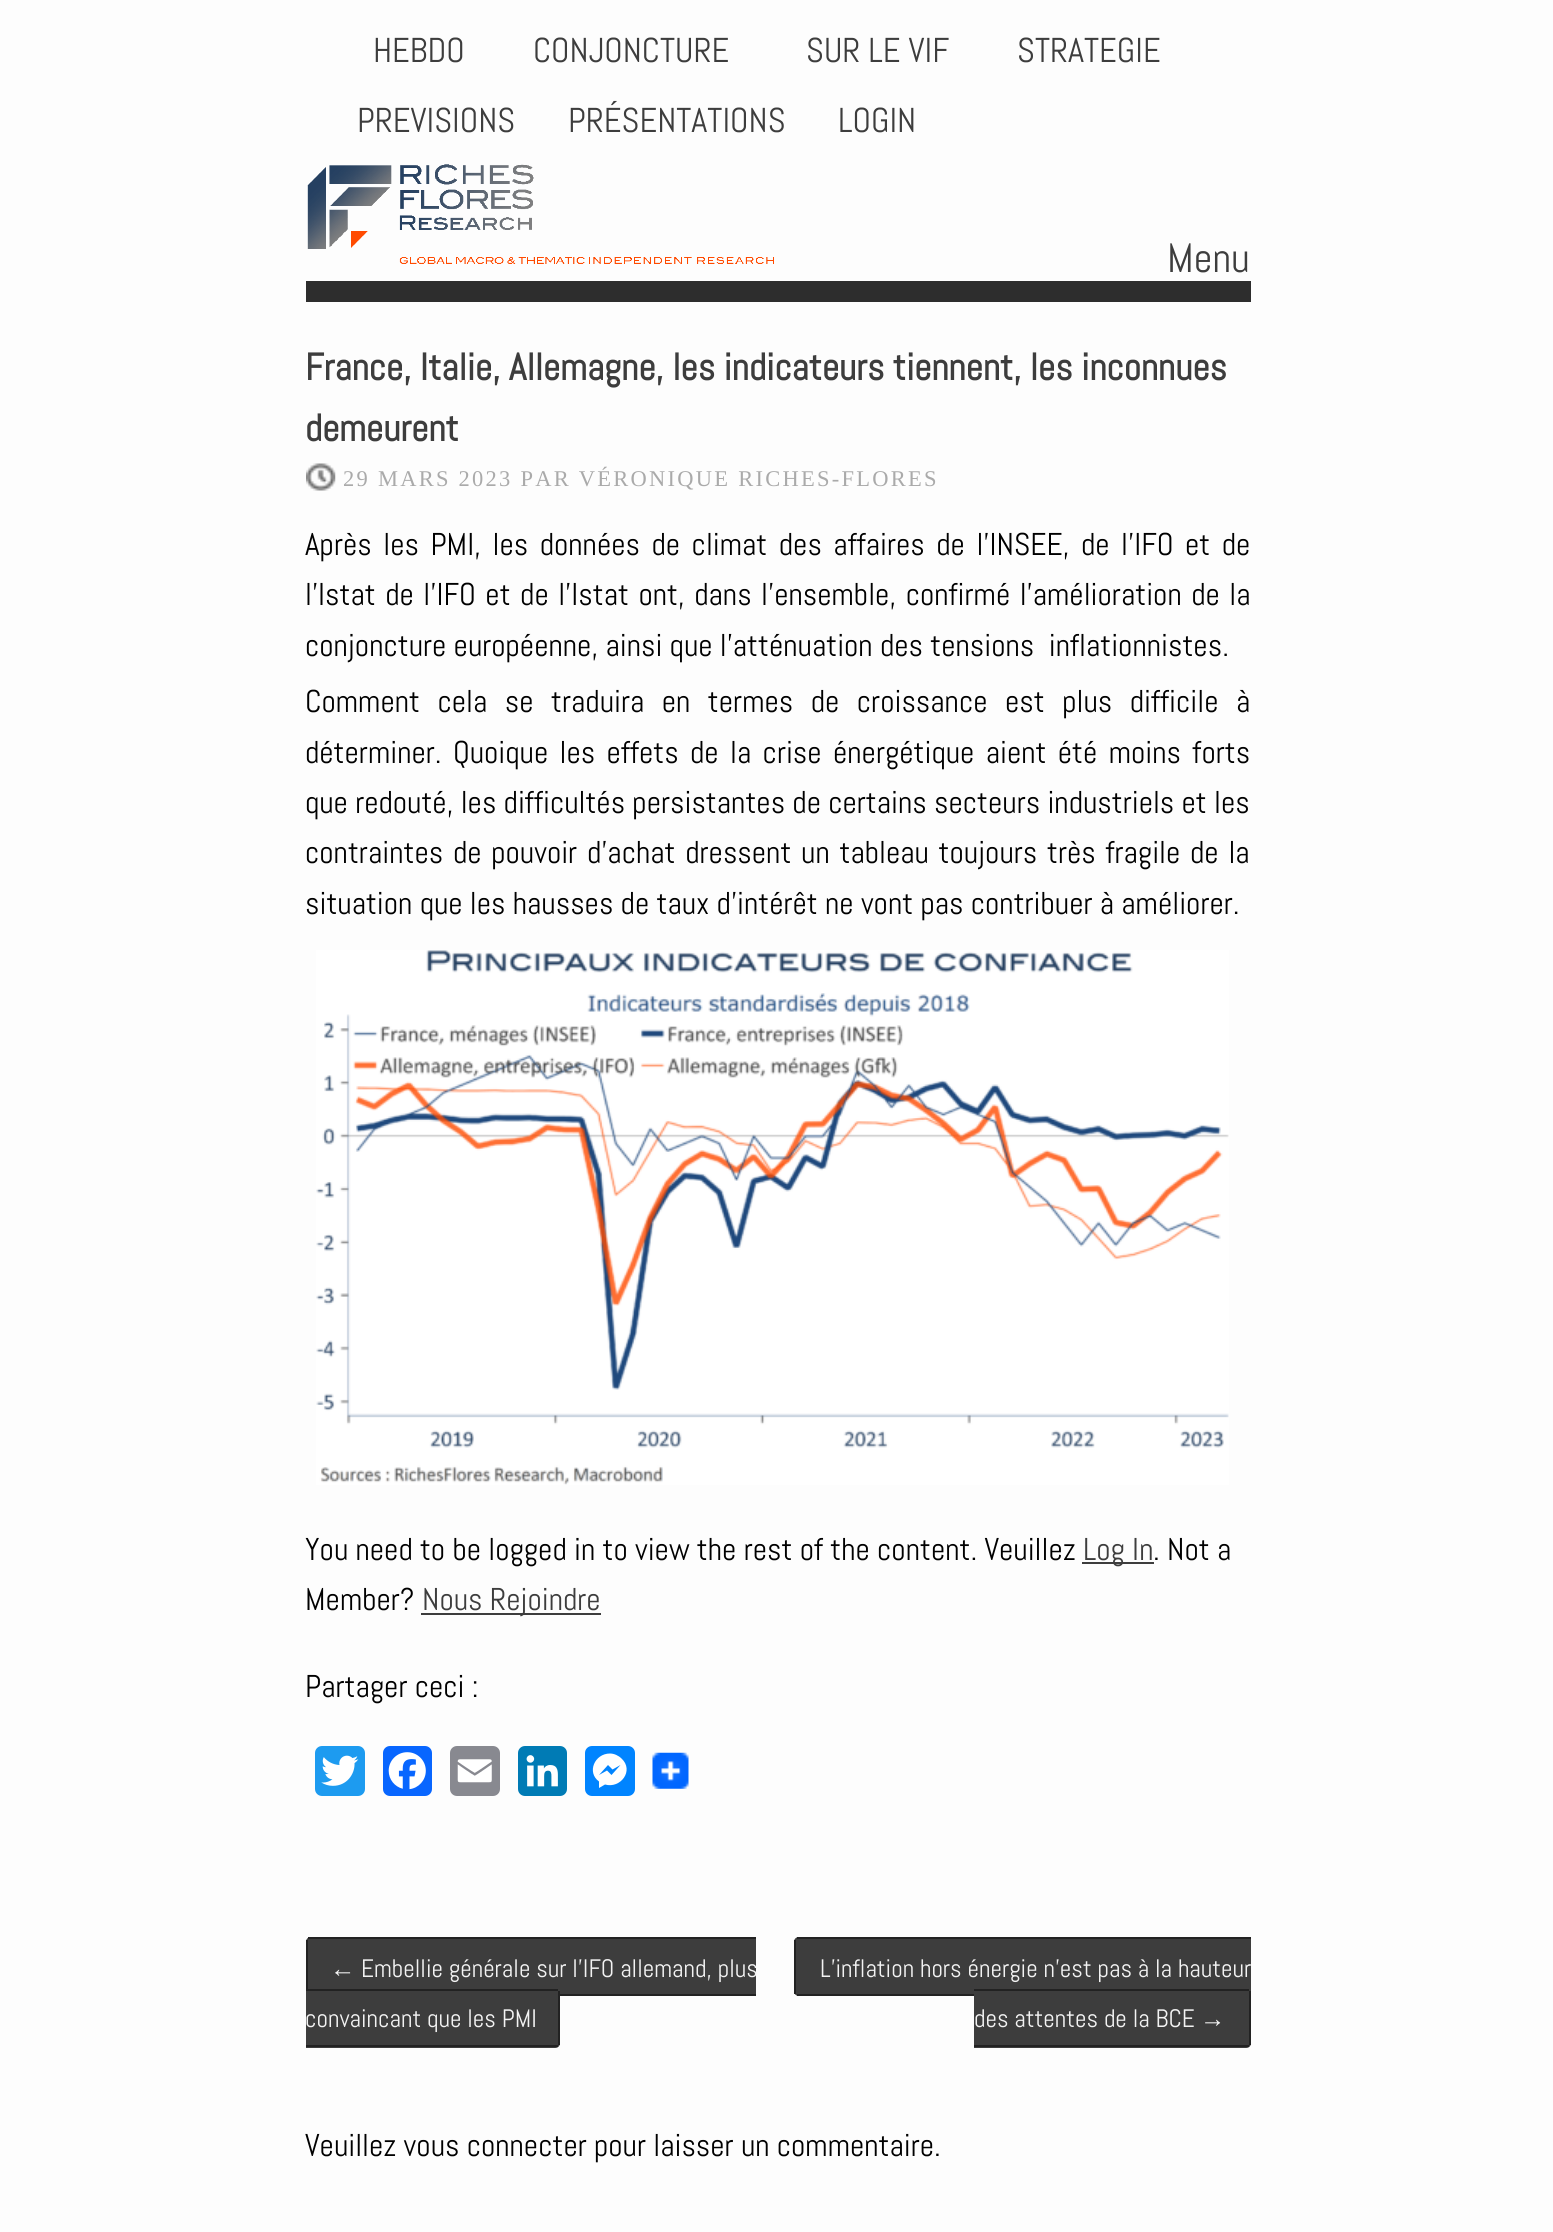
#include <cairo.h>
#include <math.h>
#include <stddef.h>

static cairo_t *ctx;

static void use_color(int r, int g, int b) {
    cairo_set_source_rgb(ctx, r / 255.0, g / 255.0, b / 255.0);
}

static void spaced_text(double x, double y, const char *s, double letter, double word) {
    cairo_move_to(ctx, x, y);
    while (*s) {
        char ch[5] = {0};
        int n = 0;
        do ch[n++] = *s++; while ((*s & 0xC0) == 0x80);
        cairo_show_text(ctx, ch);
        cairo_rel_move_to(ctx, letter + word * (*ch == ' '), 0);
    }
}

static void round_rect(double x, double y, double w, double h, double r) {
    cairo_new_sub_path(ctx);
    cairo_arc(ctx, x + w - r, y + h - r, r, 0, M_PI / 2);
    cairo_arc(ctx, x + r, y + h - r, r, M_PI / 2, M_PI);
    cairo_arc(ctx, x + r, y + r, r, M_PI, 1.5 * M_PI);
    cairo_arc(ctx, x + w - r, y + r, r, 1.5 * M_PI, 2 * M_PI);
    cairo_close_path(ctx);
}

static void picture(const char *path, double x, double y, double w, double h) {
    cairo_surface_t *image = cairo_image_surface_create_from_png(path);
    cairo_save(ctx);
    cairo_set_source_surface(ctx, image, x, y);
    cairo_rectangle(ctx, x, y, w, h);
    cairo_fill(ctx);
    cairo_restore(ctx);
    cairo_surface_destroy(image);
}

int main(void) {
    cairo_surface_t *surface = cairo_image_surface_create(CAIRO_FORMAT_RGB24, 1553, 2232);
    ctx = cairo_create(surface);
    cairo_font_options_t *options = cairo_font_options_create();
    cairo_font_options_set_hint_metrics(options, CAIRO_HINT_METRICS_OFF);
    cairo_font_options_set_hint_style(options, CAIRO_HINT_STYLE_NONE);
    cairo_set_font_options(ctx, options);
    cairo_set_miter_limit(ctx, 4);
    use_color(253, 253, 253);
    cairo_paint(ctx);
    cairo_select_font_face(ctx, "Abel", CAIRO_FONT_SLANT_NORMAL, CAIRO_FONT_WEIGHT_NORMAL);
    cairo_set_font_size(ctx, 34.5);
    use_color(61, 61, 61);
    cairo_move_to(ctx, 373, 62);
    cairo_show_text(ctx, "HEBDO");
    cairo_move_to(ctx, 533, 62);
    cairo_show_text(ctx, "CONJONCTURE");
    cairo_move_to(ctx, 806, 62);
    cairo_show_text(ctx, "SUR LE VIF");
    cairo_move_to(ctx, 1017, 62);
    cairo_show_text(ctx, "STRATEGIE");
    cairo_move_to(ctx, 357, 132);
    cairo_show_text(ctx, "PREVISIONS");
    cairo_move_to(ctx, 568, 132);
    cairo_show_text(ctx, "PRÉSENTATIONS");
    cairo_move_to(ctx, 838, 132);
    cairo_show_text(ctx, "LOGIN");
    use_color(45, 45, 45);
    cairo_rectangle(ctx, 306, 281, 945, 21);
    cairo_fill(ctx);
    picture("img1.png", 307, 164, 467, 100);
    cairo_set_font_size(ctx, 41);
    use_color(61, 61, 61);
    cairo_move_to(ctx, 1167, 272);
    cairo_show_text(ctx, "Menu");
    cairo_select_font_face(ctx, "Abel", CAIRO_FONT_SLANT_NORMAL, CAIRO_FONT_WEIGHT_BOLD);
    cairo_set_font_size(ctx, 37.8);
    spaced_text(305, 380, "France, Italie, Allemagne, les indicateurs tiennent, les inconnues", 0, -0.25);
    cairo_move_to(ctx, 305, 441);
    cairo_show_text(ctx, "demeurent");
    picture("img2.png", 306, 463, 30, 28);
    cairo_select_font_face(ctx, "Liberation Serif", CAIRO_FONT_SLANT_NORMAL, CAIRO_FONT_WEIGHT_NORMAL);
    cairo_set_font_size(ctx, 22.5);
    use_color(170, 170, 170);
    spaced_text(343, 486, "29 MARS 2023 PAR VÉRONIQUE RICHES-FLORES", 2.25, 0);
    cairo_select_font_face(ctx, "Abel", CAIRO_FONT_SLANT_NORMAL, CAIRO_FONT_WEIGHT_NORMAL);
    cairo_set_font_size(ctx, 31.5);
    use_color(0, 0, 0);
    spaced_text(305, 555, "Après les PMI, les données de climat des affaires de l’INSEE, de l’IFO et de", 0, 4.25);
    spaced_text(305, 605, "l’Istat de l’IFO et de l’Istat ont, dans l’ensemble, confirmé l’amélioration de la", 0, 2.25);
    cairo_move_to(ctx, 305, 656);
    cairo_show_text(ctx, "conjoncture européenne, ainsi que l’atténuation des tensions  inflationnistes.");
    spaced_text(305, 712, "Comment cela se traduira en termes de croissance est plus difficile à", 0, 10.25);
    spaced_text(305, 763, "déterminer. Quoique les effets de la crise énergétique aient été moins forts", 0, 4.1);
    cairo_move_to(ctx, 305, 813);
    cairo_show_text(ctx, "que redouté, les difficultés persistantes de certains secteurs industriels et les");
    spaced_text(305, 863, "contraintes de pouvoir d’achat dressent un tableau toujours très fragile de la", 0, 2.5);
    cairo_move_to(ctx, 305, 914);
    cairo_show_text(ctx, "situation que les hausses de taux d’intérêt ne vont pas contribuer à améliorer.");
    picture("img3.png", 316, 950, 913, 535);
    cairo_move_to(ctx, 305, 1560);
    cairo_show_text(ctx, "You need to be logged in to view the rest of the content. Veuillez");
    use_color(61, 61, 61);
    cairo_rectangle(ctx, 1082, 1562, 72, 2);
    cairo_fill(ctx);
    cairo_move_to(ctx, 1083, 1560);
    cairo_show_text(ctx, "Log In");
    use_color(0, 0, 0);
    cairo_move_to(ctx, 1153, 1560);
    cairo_show_text(ctx, ". Not a");
    cairo_move_to(ctx, 305, 1610);
    cairo_show_text(ctx, "Member?");
    use_color(61, 61, 61);
    cairo_rectangle(ctx, 421, 1613, 180, 2);
    cairo_fill(ctx);
    cairo_move_to(ctx, 422, 1610);
    cairo_show_text(ctx, "Nous Rejoindre");
    use_color(0, 0, 0);
    cairo_move_to(ctx, 305, 1697);
    cairo_show_text(ctx, "Partager ceci :");
    use_color(29, 155, 240);
    round_rect(315, 1746, 50, 50, 7);
    cairo_fill(ctx);
    picture("img4.png", 321, 1755, 38, 31);
    use_color(8, 102, 255);
    round_rect(383, 1746, 49, 50, 7);
    cairo_fill(ctx);
    picture("img5.png", 388, 1752, 38, 38);
    use_color(136, 137, 144);
    round_rect(450, 1746, 50, 50, 7);
    cairo_fill(ctx);
    picture("img6.png", 457, 1759, 35, 24);
    use_color(0, 123, 181);
    round_rect(518, 1746, 49, 50, 7);
    cairo_fill(ctx);
    picture("img7.png", 526, 1755, 32, 32);
    use_color(0, 132, 255);
    round_rect(585, 1746, 50, 50, 7);
    cairo_fill(ctx);
    use_color(255, 255, 255);
    cairo_new_path(ctx);
    cairo_move_to(ctx, 610, 1753.5);
    cairo_curve_to(ctx, 594.5, 1753.5, 586.5, 1772.5, 599, 1781.5);
    cairo_line_to(ctx, 599, 1788);
    cairo_line_to(ctx, 605, 1784.5);
    cairo_curve_to(ctx, 620.5, 1789, 634.5, 1770.5, 621.5, 1758.5);
    cairo_curve_to(ctx, 618.5, 1755.5, 614, 1753.5, 610, 1753.5);
    cairo_move_to(ctx, 611.5, 1775);
    cairo_line_to(ctx, 607, 1770.5);
    cairo_line_to(ctx, 599, 1775);
    cairo_line_to(ctx, 608, 1765);
    cairo_line_to(ctx, 612.5, 1769.5);
    cairo_line_to(ctx, 620.5, 1765);
    cairo_close_path(ctx);
    cairo_fill(ctx);
    picture("img8.png", 652, 1752, 37, 37);
    use_color(61, 61, 61);
    cairo_new_path(ctx);
    cairo_move_to(ctx, 311, 1937);
    cairo_line_to(ctx, 356, 1937);
    cairo_line_to(ctx, 356, 1996);
    cairo_line_to(ctx, 311, 1996);
    cairo_curve_to(ctx, 308, 1996, 306, 1994, 306, 1991);
    cairo_line_to(ctx, 306, 1942);
    cairo_curve_to(ctx, 306, 1939, 308, 1937, 311, 1937);
    cairo_close_path(ctx);
    cairo_fill(ctx);
    cairo_select_font_face(ctx, "Liberation Serif", CAIRO_FONT_SLANT_NORMAL, CAIRO_FONT_WEIGHT_NORMAL);
    cairo_set_font_size(ctx, 25.25);
    use_color(243, 243, 243);
    cairo_move_to(ctx, 330, 1977);
    cairo_show_text(ctx, "←");
    use_color(34, 34, 34);
    cairo_rectangle(ctx, 306, 1940, 2, 54);
    cairo_fill(ctx);
    use_color(61, 61, 61);
    cairo_rectangle(ctx, 356, 1939, 400, 55);
    cairo_fill(ctx);
    cairo_new_path(ctx);
    cairo_move_to(ctx, 306, 1989);
    cairo_line_to(ctx, 555, 1989);
    cairo_curve_to(ctx, 558, 1989, 560, 1991, 560, 1994);
    cairo_line_to(ctx, 560, 2043);
    cairo_curve_to(ctx, 560, 2046, 558, 2048, 555, 2048);
    cairo_line_to(ctx, 306, 2048);
    cairo_close_path(ctx);
    cairo_fill(ctx);
    use_color(34, 34, 34);
    cairo_rectangle(ctx, 306, 1989, 252, 2);
    cairo_fill(ctx);
    cairo_select_font_face(ctx, "Abel", CAIRO_FONT_SLANT_NORMAL, CAIRO_FONT_WEIGHT_NORMAL);
    use_color(243, 243, 243);
    cairo_move_to(ctx, 361, 1977);
    cairo_show_text(ctx, "Embellie générale sur l’IFO allemand, plus");
    use_color(34, 34, 34);
    cairo_rectangle(ctx, 308, 1937, 448, 2);
    cairo_fill(ctx);
    cairo_rectangle(ctx, 560, 1994, 196, 2);
    cairo_fill(ctx);
    use_color(243, 243, 243);
    cairo_move_to(ctx, 305, 2027);
    cairo_show_text(ctx, "convaincant que les PMI");
    use_color(34, 34, 34);
    cairo_rectangle(ctx, 558, 1991, 2, 54);
    cairo_fill(ctx);
    cairo_rectangle(ctx, 306, 2045, 252, 2);
    cairo_fill(ctx);
    use_color(61, 61, 61);
    cairo_new_path(ctx);
    cairo_move_to(ctx, 799, 1937);
    cairo_line_to(ctx, 1251, 1937);
    cairo_line_to(ctx, 1251, 1996);
    cairo_line_to(ctx, 799, 1996);
    cairo_curve_to(ctx, 796, 1996, 794, 1994, 794, 1991);
    cairo_line_to(ctx, 794, 1942);
    cairo_curve_to(ctx, 794, 1939, 796, 1937, 799, 1937);
    cairo_close_path(ctx);
    cairo_fill(ctx);
    use_color(243, 243, 243);
    cairo_move_to(ctx, 820, 1977);
    cairo_show_text(ctx, "L’inflation hors énergie n’est pas à la hauteur");
    use_color(34, 34, 34);
    cairo_rectangle(ctx, 797, 1937, 454, 2);
    cairo_fill(ctx);
    cairo_rectangle(ctx, 797, 1994, 177, 2);
    cairo_fill(ctx);
    cairo_rectangle(ctx, 794, 1940, 2, 54);
    cairo_fill(ctx);
    cairo_rectangle(ctx, 974, 1989, 225, 2);
    cairo_fill(ctx);
    use_color(61, 61, 61);
    cairo_new_path(ctx);
    cairo_move_to(ctx, 1199, 1989);
    cairo_line_to(ctx, 1246, 1989);
    cairo_curve_to(ctx, 1249, 1989, 1251, 1991, 1251, 1994);
    cairo_line_to(ctx, 1251, 2043);
    cairo_curve_to(ctx, 1251, 2046, 1249, 2048, 1246, 2048);
    cairo_line_to(ctx, 1199, 2048);
    cairo_close_path(ctx);
    cairo_fill(ctx);
    use_color(34, 34, 34);
    cairo_rectangle(ctx, 1199, 1989, 50, 2);
    cairo_fill(ctx);
    use_color(61, 61, 61);
    cairo_rectangle(ctx, 974, 1996, 225, 52);
    cairo_fill(ctx);
    use_color(243, 243, 243);
    cairo_move_to(ctx, 974, 2027);
    cairo_show_text(ctx, "des attentes de la BCE");
    cairo_select_font_face(ctx, "Liberation Serif", CAIRO_FONT_SLANT_NORMAL, CAIRO_FONT_WEIGHT_NORMAL);
    cairo_move_to(ctx, 1200, 2027);
    cairo_show_text(ctx, "→");
    use_color(34, 34, 34);
    cairo_rectangle(ctx, 974, 2045, 225, 2);
    cairo_fill(ctx);
    cairo_rectangle(ctx, 1249, 1991, 2, 54);
    cairo_fill(ctx);
    cairo_rectangle(ctx, 1199, 2045, 50, 2);
    cairo_fill(ctx);
    cairo_select_font_face(ctx, "Abel", CAIRO_FONT_SLANT_NORMAL, CAIRO_FONT_WEIGHT_NORMAL);
    cairo_set_font_size(ctx, 31.5);
    use_color(0, 0, 0);
    cairo_move_to(ctx, 305, 2156);
    cairo_show_text(ctx, "Veuillez vous connecter pour laisser un commentaire.");
    cairo_surface_write_to_png(surface, "result.png");
    cairo_font_options_destroy(options);
    cairo_destroy(ctx);
    cairo_surface_destroy(surface);
    return 0;
}
